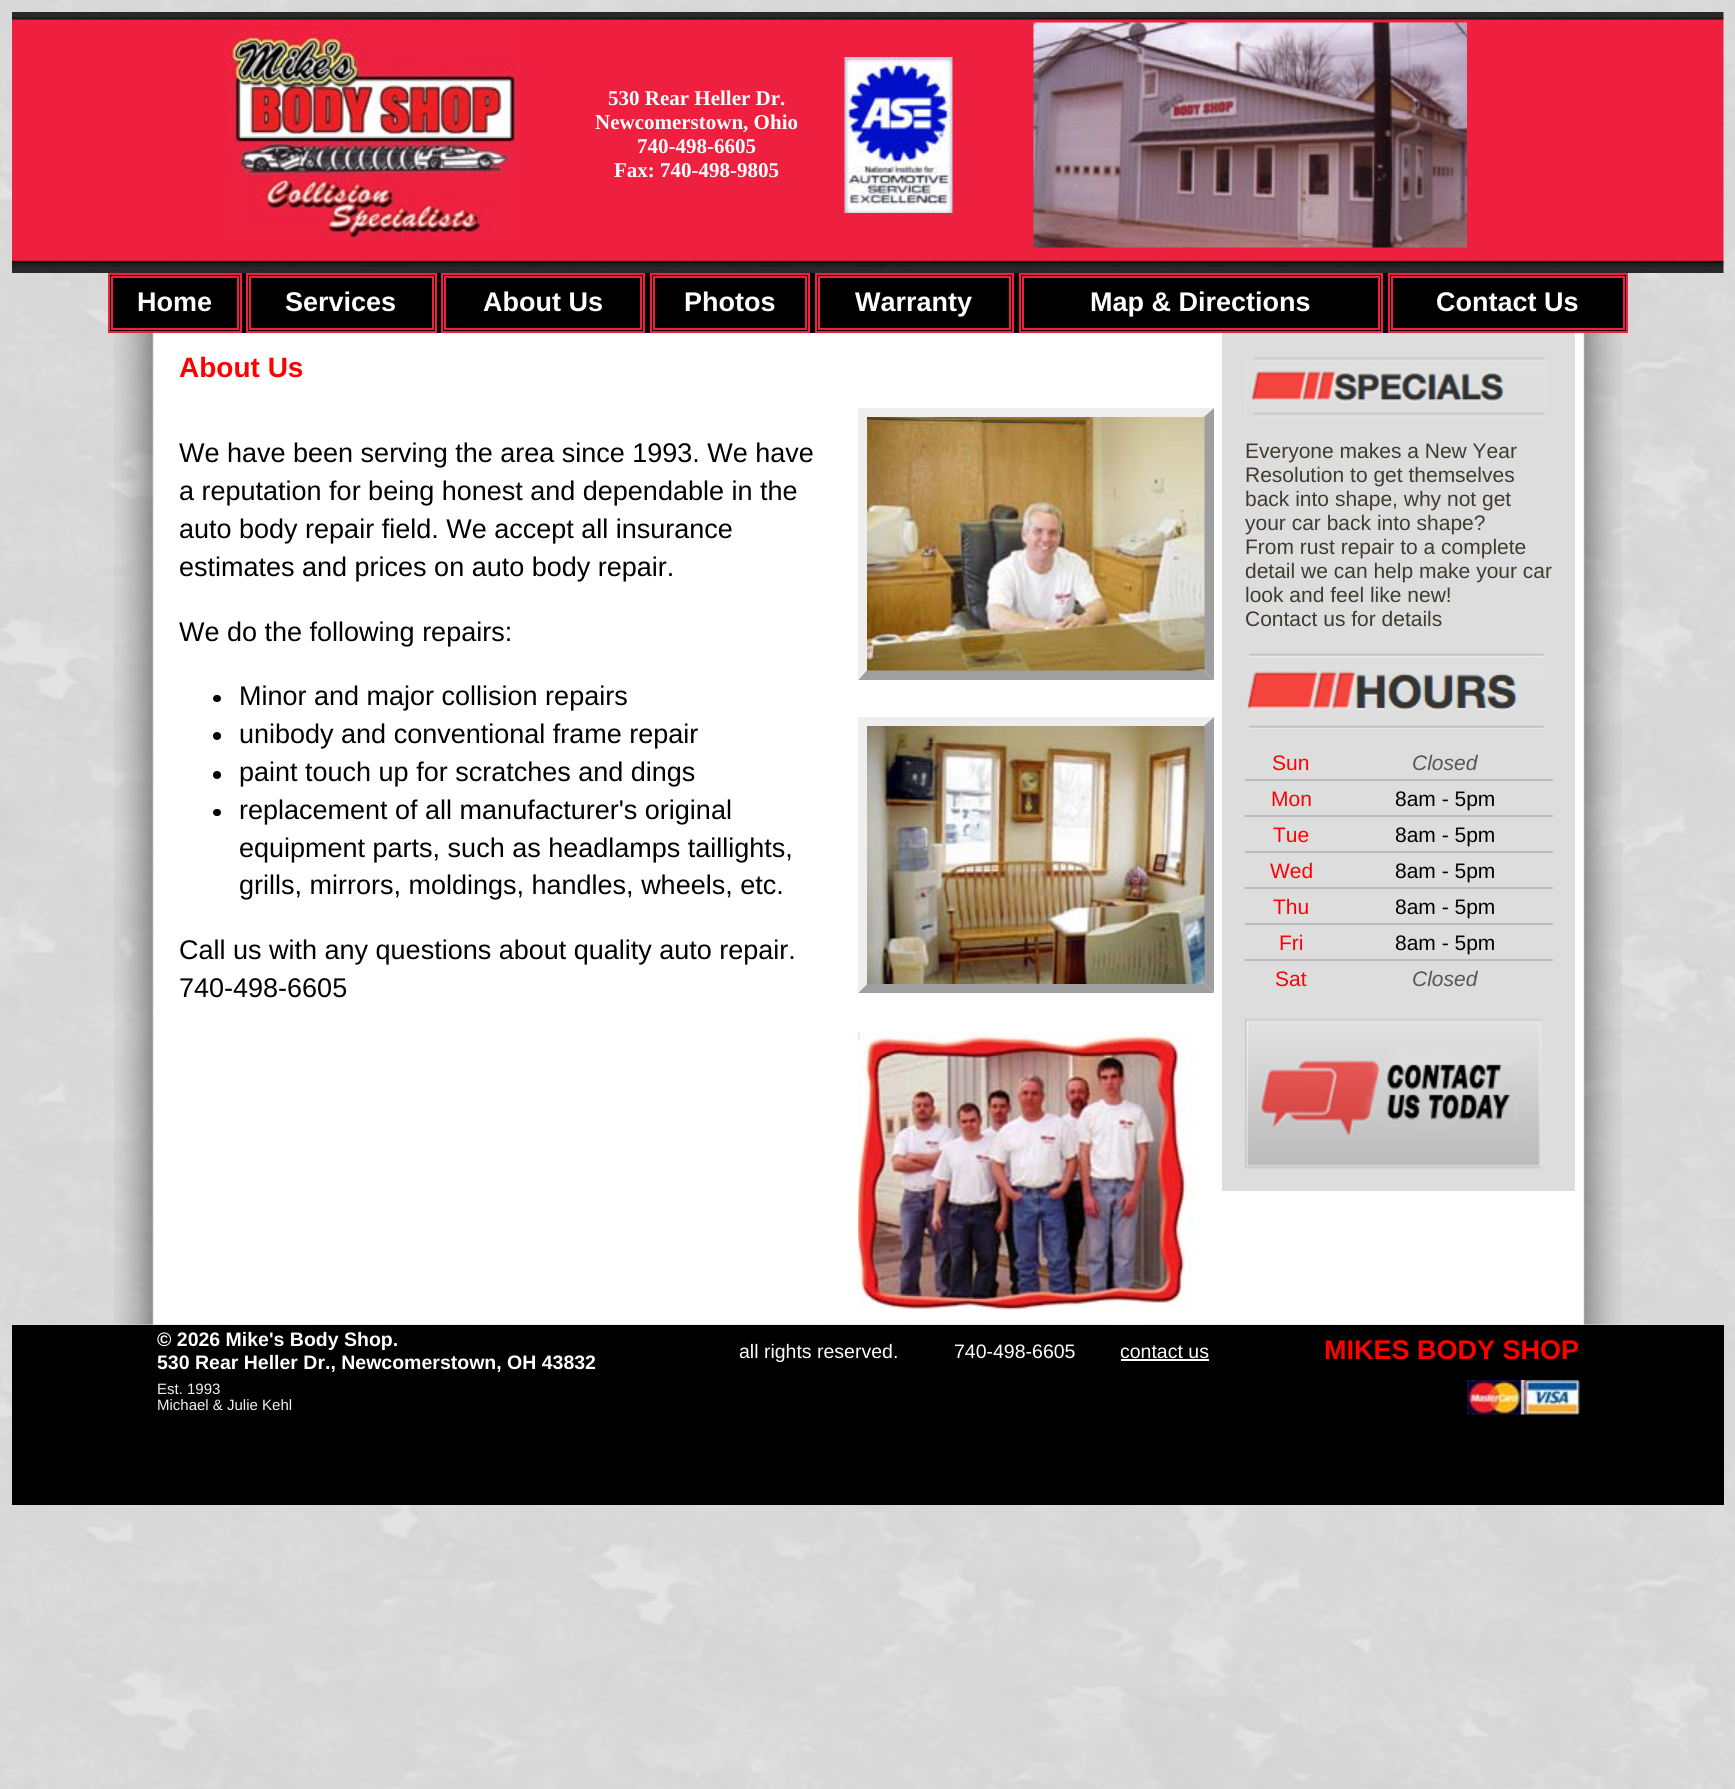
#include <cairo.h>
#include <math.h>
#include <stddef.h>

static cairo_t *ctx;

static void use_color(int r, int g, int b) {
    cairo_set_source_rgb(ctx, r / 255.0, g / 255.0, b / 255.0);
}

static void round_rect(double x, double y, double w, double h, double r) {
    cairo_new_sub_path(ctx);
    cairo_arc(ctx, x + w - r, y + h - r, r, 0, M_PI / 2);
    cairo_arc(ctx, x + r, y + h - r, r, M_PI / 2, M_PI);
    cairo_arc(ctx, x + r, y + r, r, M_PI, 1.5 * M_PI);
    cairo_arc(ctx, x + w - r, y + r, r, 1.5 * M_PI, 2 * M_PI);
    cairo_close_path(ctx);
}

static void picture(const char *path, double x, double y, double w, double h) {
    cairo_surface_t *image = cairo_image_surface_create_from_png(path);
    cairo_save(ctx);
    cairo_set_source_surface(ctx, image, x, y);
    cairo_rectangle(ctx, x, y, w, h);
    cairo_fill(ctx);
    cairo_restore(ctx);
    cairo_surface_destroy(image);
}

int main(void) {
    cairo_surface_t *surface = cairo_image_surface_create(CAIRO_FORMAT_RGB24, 1735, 1789);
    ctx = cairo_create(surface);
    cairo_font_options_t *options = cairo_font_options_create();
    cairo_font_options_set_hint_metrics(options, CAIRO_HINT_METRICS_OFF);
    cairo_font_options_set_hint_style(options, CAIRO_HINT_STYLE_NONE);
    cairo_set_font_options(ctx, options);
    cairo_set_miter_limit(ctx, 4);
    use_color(255, 255, 255);
    cairo_paint(ctx);
    picture("img1.png", 0, 0, 1735, 1789);
    picture("img2.png", 12, 12, 1712, 261);
    picture("img3.png", 225, 30, 296, 210);
    cairo_select_font_face(ctx, "Liberation Serif", CAIRO_FONT_SLANT_NORMAL, CAIRO_FONT_WEIGHT_BOLD);
    cairo_set_font_size(ctx, 21);
    use_color(255, 255, 255);
    cairo_move_to(ctx, 608, 105);
    cairo_show_text(ctx, "530 Rear Heller Dr.");
    cairo_move_to(ctx, 595, 129);
    cairo_show_text(ctx, "Newcomerstown, Ohio");
    cairo_move_to(ctx, 637, 153);
    cairo_show_text(ctx, "740-498-6605");
    cairo_move_to(ctx, 614, 177);
    cairo_show_text(ctx, "Fax: 740-498-9805");
    picture("img4.png", 844, 57, 109, 156);
    picture("img5.png", 1033, 22, 434, 226);
    use_color(0, 0, 0);
    cairo_rectangle(ctx, 110, 273, 1516, 60);
    cairo_fill(ctx);
    cairo_rectangle(ctx, 109, 274, 132, 58);
    use_color(239, 32, 63);
    cairo_stroke(ctx);
    cairo_rectangle(ctx, 112, 277, 126, 52);
    cairo_stroke(ctx);
    cairo_select_font_face(ctx, "Liberation Sans", CAIRO_FONT_SLANT_NORMAL, CAIRO_FONT_WEIGHT_BOLD);
    cairo_set_font_size(ctx, 27);
    use_color(255, 255, 255);
    cairo_move_to(ctx, 137, 311);
    cairo_show_text(ctx, "Home");
    cairo_rectangle(ctx, 247, 274, 189, 58);
    use_color(239, 32, 63);
    cairo_stroke(ctx);
    cairo_rectangle(ctx, 250, 277, 183, 52);
    cairo_stroke(ctx);
    use_color(255, 255, 255);
    cairo_move_to(ctx, 285, 311);
    cairo_show_text(ctx, "Services");
    cairo_rectangle(ctx, 442, 274, 202, 58);
    use_color(239, 32, 63);
    cairo_stroke(ctx);
    cairo_rectangle(ctx, 445, 277, 196, 52);
    cairo_stroke(ctx);
    use_color(255, 255, 255);
    cairo_move_to(ctx, 483, 311);
    cairo_show_text(ctx, "About Us");
    cairo_rectangle(ctx, 651, 274, 158, 58);
    use_color(239, 32, 63);
    cairo_stroke(ctx);
    cairo_rectangle(ctx, 654, 277, 152, 52);
    cairo_stroke(ctx);
    use_color(255, 255, 255);
    cairo_move_to(ctx, 684, 311);
    cairo_show_text(ctx, "Photos");
    cairo_rectangle(ctx, 816, 274, 197, 58);
    use_color(239, 32, 63);
    cairo_stroke(ctx);
    cairo_rectangle(ctx, 819, 277, 191, 52);
    cairo_stroke(ctx);
    use_color(255, 255, 255);
    cairo_move_to(ctx, 855, 311);
    cairo_show_text(ctx, "Warranty");
    cairo_rectangle(ctx, 1020, 274, 362, 58);
    use_color(239, 32, 63);
    cairo_stroke(ctx);
    cairo_rectangle(ctx, 1023, 277, 356, 52);
    cairo_stroke(ctx);
    use_color(255, 255, 255);
    cairo_move_to(ctx, 1090, 311);
    cairo_show_text(ctx, "Map & Directions");
    cairo_rectangle(ctx, 1389, 274, 238, 58);
    use_color(239, 32, 63);
    cairo_stroke(ctx);
    cairo_rectangle(ctx, 1392, 277, 232, 52);
    cairo_stroke(ctx);
    use_color(255, 255, 255);
    cairo_move_to(ctx, 1436, 311);
    cairo_show_text(ctx, "Contact Us");
    picture("img6.png", 114, 333, 1508, 992);
    cairo_set_font_size(ctx, 28);
    use_color(255, 0, 0);
    cairo_move_to(ctx, 179, 377);
    cairo_show_text(ctx, "About Us");
    cairo_select_font_face(ctx, "Liberation Sans", CAIRO_FONT_SLANT_NORMAL, CAIRO_FONT_WEIGHT_NORMAL);
    cairo_set_font_size(ctx, 27);
    use_color(0, 0, 0);
    cairo_move_to(ctx, 179, 462);
    cairo_show_text(ctx, "We have been serving the area since 1993. We have");
    cairo_move_to(ctx, 179, 500);
    cairo_show_text(ctx, "a reputation for being honest and dependable in the");
    cairo_move_to(ctx, 179, 538);
    cairo_show_text(ctx, "auto body repair field. We accept all insurance");
    cairo_move_to(ctx, 179, 576);
    cairo_show_text(ctx, "estimates and prices on auto body repair.");
    cairo_move_to(ctx, 179, 641);
    cairo_show_text(ctx, "We do the following repairs:");
    round_rect(213, 695, 8, 7, 3.5);
    cairo_fill(ctx);
    cairo_move_to(ctx, 239, 705);
    cairo_show_text(ctx, "Minor and major collision repairs");
    cairo_new_path(ctx);
    cairo_arc(ctx, 217, 736, 4, 0, 2 * M_PI);
    cairo_fill(ctx);
    cairo_move_to(ctx, 239, 743);
    cairo_show_text(ctx, "unibody and conventional frame repair");
    cairo_new_path(ctx);
    cairo_arc(ctx, 217, 775, 4, 0, 2 * M_PI);
    cairo_fill(ctx);
    cairo_move_to(ctx, 239, 781);
    cairo_show_text(ctx, "paint touch up for scratches and dings");
    round_rect(213, 809, 8, 7, 3.5);
    cairo_fill(ctx);
    cairo_move_to(ctx, 239, 819);
    cairo_show_text(ctx, "replacement of all manufacturer's original");
    cairo_move_to(ctx, 239, 857);
    cairo_show_text(ctx, "equipment parts, such as headlamps taillights,");
    cairo_move_to(ctx, 239, 894);
    cairo_show_text(ctx, "grills, mirrors, moldings, handles, wheels, etc.");
    cairo_move_to(ctx, 179, 959);
    cairo_show_text(ctx, "Call us with any questions about quality auto repair.");
    cairo_move_to(ctx, 179, 997);
    cairo_show_text(ctx, "740-498-6605");
    use_color(238, 238, 238);
    cairo_new_path(ctx);
    cairo_move_to(ctx, 858, 408);
    cairo_line_to(ctx, 1214, 408);
    cairo_line_to(ctx, 1204, 417);
    cairo_line_to(ctx, 867, 417);
    cairo_close_path(ctx);
    cairo_fill(ctx);
    use_color(159, 159, 159);
    cairo_new_path(ctx);
    cairo_move_to(ctx, 1214, 408);
    cairo_line_to(ctx, 1214, 680);
    cairo_line_to(ctx, 1204, 670);
    cairo_line_to(ctx, 1204, 417);
    cairo_close_path(ctx);
    cairo_fill(ctx);
    cairo_new_path(ctx);
    cairo_move_to(ctx, 1214, 680);
    cairo_line_to(ctx, 858, 680);
    cairo_line_to(ctx, 867, 670);
    cairo_line_to(ctx, 1204, 670);
    cairo_close_path(ctx);
    cairo_fill(ctx);
    use_color(238, 238, 238);
    cairo_new_path(ctx);
    cairo_move_to(ctx, 858, 680);
    cairo_line_to(ctx, 858, 408);
    cairo_line_to(ctx, 867, 417);
    cairo_line_to(ctx, 867, 670);
    cairo_close_path(ctx);
    cairo_fill(ctx);
    picture("img7.png", 867, 417, 338, 254);
    cairo_new_path(ctx);
    cairo_move_to(ctx, 858, 717);
    cairo_line_to(ctx, 1214, 717);
    cairo_line_to(ctx, 1204, 726);
    cairo_line_to(ctx, 867, 726);
    cairo_close_path(ctx);
    cairo_fill(ctx);
    use_color(159, 159, 159);
    cairo_new_path(ctx);
    cairo_move_to(ctx, 1214, 717);
    cairo_line_to(ctx, 1214, 993);
    cairo_line_to(ctx, 1204, 984);
    cairo_line_to(ctx, 1204, 726);
    cairo_close_path(ctx);
    cairo_fill(ctx);
    cairo_new_path(ctx);
    cairo_move_to(ctx, 1214, 993);
    cairo_line_to(ctx, 858, 993);
    cairo_line_to(ctx, 867, 984);
    cairo_line_to(ctx, 1204, 984);
    cairo_close_path(ctx);
    cairo_fill(ctx);
    use_color(238, 238, 238);
    cairo_new_path(ctx);
    cairo_move_to(ctx, 858, 993);
    cairo_line_to(ctx, 858, 717);
    cairo_line_to(ctx, 867, 726);
    cairo_line_to(ctx, 867, 984);
    cairo_close_path(ctx);
    cairo_fill(ctx);
    picture("img8.png", 867, 726, 338, 258);
    picture("img9.png", 858, 1032, 336, 278);
    use_color(221, 221, 221);
    cairo_rectangle(ctx, 1222, 333, 353, 858);
    cairo_fill(ctx);
    picture("img10.png", 1245, 356, 300, 61);
    cairo_set_font_size(ctx, 21);
    use_color(63, 59, 48);
    cairo_move_to(ctx, 1245, 458);
    cairo_show_text(ctx, "Everyone makes a New Year");
    cairo_move_to(ctx, 1245, 482);
    cairo_show_text(ctx, "Resolution to get themselves");
    cairo_move_to(ctx, 1245, 506);
    cairo_show_text(ctx, "back into shape, why not get");
    cairo_move_to(ctx, 1245, 530);
    cairo_show_text(ctx, "your car back into shape?");
    cairo_move_to(ctx, 1245, 554);
    cairo_show_text(ctx, "From rust repair to a complete");
    cairo_move_to(ctx, 1245, 578);
    cairo_show_text(ctx, "detail we can help make your car");
    cairo_move_to(ctx, 1245, 602);
    cairo_show_text(ctx, "look and feel like new!");
    cairo_move_to(ctx, 1245, 626);
    cairo_show_text(ctx, "Contact us for details");
    picture("img11.png", 1247, 653, 297, 76);
    use_color(187, 187, 187);
    cairo_rectangle(ctx, 1245, 779, 308, 2);
    cairo_fill(ctx);
    use_color(255, 0, 0);
    cairo_move_to(ctx, 1272, 770);
    cairo_show_text(ctx, "Sun");
    cairo_select_font_face(ctx, "Liberation Sans", CAIRO_FONT_SLANT_ITALIC, CAIRO_FONT_WEIGHT_NORMAL);
    use_color(86, 86, 86);
    cairo_move_to(ctx, 1412, 770);
    cairo_show_text(ctx, "Closed");
    use_color(187, 187, 187);
    cairo_rectangle(ctx, 1245, 815, 308, 2);
    cairo_fill(ctx);
    cairo_select_font_face(ctx, "Liberation Sans", CAIRO_FONT_SLANT_NORMAL, CAIRO_FONT_WEIGHT_NORMAL);
    use_color(255, 0, 0);
    cairo_move_to(ctx, 1271, 806);
    cairo_show_text(ctx, "Mon");
    use_color(0, 0, 0);
    cairo_move_to(ctx, 1395, 806);
    cairo_show_text(ctx, "8am - 5pm");
    use_color(187, 187, 187);
    cairo_rectangle(ctx, 1245, 851, 308, 2);
    cairo_fill(ctx);
    use_color(255, 0, 0);
    cairo_move_to(ctx, 1273, 842);
    cairo_show_text(ctx, "Tue");
    use_color(0, 0, 0);
    cairo_move_to(ctx, 1395, 842);
    cairo_show_text(ctx, "8am - 5pm");
    use_color(187, 187, 187);
    cairo_rectangle(ctx, 1245, 887, 308, 2);
    cairo_fill(ctx);
    use_color(255, 0, 0);
    cairo_move_to(ctx, 1270, 878);
    cairo_show_text(ctx, "Wed");
    use_color(0, 0, 0);
    cairo_move_to(ctx, 1395, 878);
    cairo_show_text(ctx, "8am - 5pm");
    use_color(187, 187, 187);
    cairo_rectangle(ctx, 1245, 923, 308, 2);
    cairo_fill(ctx);
    use_color(255, 0, 0);
    cairo_move_to(ctx, 1273, 914);
    cairo_show_text(ctx, "Thu");
    use_color(0, 0, 0);
    cairo_move_to(ctx, 1395, 914);
    cairo_show_text(ctx, "8am - 5pm");
    use_color(187, 187, 187);
    cairo_rectangle(ctx, 1245, 959, 308, 2);
    cairo_fill(ctx);
    use_color(255, 0, 0);
    cairo_move_to(ctx, 1279, 950);
    cairo_show_text(ctx, "Fri");
    use_color(0, 0, 0);
    cairo_move_to(ctx, 1395, 950);
    cairo_show_text(ctx, "8am - 5pm");
    use_color(255, 0, 0);
    cairo_move_to(ctx, 1275, 986);
    cairo_show_text(ctx, "Sat");
    cairo_select_font_face(ctx, "Liberation Sans", CAIRO_FONT_SLANT_ITALIC, CAIRO_FONT_WEIGHT_NORMAL);
    use_color(86, 86, 86);
    cairo_move_to(ctx, 1412, 986);
    cairo_show_text(ctx, "Closed");
    picture("img12.png", 1245, 1018, 297, 151);
    use_color(0, 0, 0);
    cairo_rectangle(ctx, 12, 1325, 1712, 180);
    cairo_fill(ctx);
    cairo_select_font_face(ctx, "Liberation Sans", CAIRO_FONT_SLANT_NORMAL, CAIRO_FONT_WEIGHT_BOLD);
    cairo_set_font_size(ctx, 19.5);
    use_color(255, 255, 255);
    cairo_move_to(ctx, 157, 1346);
    cairo_show_text(ctx, "© 2026 Mike's Body Shop.");
    cairo_move_to(ctx, 157, 1369);
    cairo_show_text(ctx, "530 Rear Heller Dr., Newcomerstown, OH 43832");
    cairo_select_font_face(ctx, "Liberation Sans", CAIRO_FONT_SLANT_NORMAL, CAIRO_FONT_WEIGHT_NORMAL);
    cairo_move_to(ctx, 739, 1358);
    cairo_show_text(ctx, "all rights reserved.");
    cairo_move_to(ctx, 954, 1358);
    cairo_show_text(ctx, "740-498-6605");
    cairo_move_to(ctx, 1120, 1358);
    cairo_show_text(ctx, "contact us");
    cairo_rectangle(ctx, 1121, 1359, 88, 2);
    cairo_fill(ctx);
    cairo_select_font_face(ctx, "Liberation Sans", CAIRO_FONT_SLANT_NORMAL, CAIRO_FONT_WEIGHT_BOLD);
    cairo_set_font_size(ctx, 27);
    use_color(255, 0, 0);
    cairo_move_to(ctx, 1324, 1359);
    cairo_show_text(ctx, "MIKES BODY SHOP");
    cairo_select_font_face(ctx, "Liberation Sans", CAIRO_FONT_SLANT_NORMAL, CAIRO_FONT_WEIGHT_NORMAL);
    cairo_set_font_size(ctx, 15);
    use_color(242, 242, 242);
    cairo_move_to(ctx, 157, 1394);
    cairo_show_text(ctx, "Est. 1993");
    cairo_move_to(ctx, 157, 1410);
    cairo_show_text(ctx, "Michael & Julie Kehl");
    picture("img13.png", 1467, 1380, 113, 35);
    cairo_surface_write_to_png(surface, "result.png");
    cairo_font_options_destroy(options);
    cairo_destroy(ctx);
    cairo_surface_destroy(surface);
    return 0;
}
